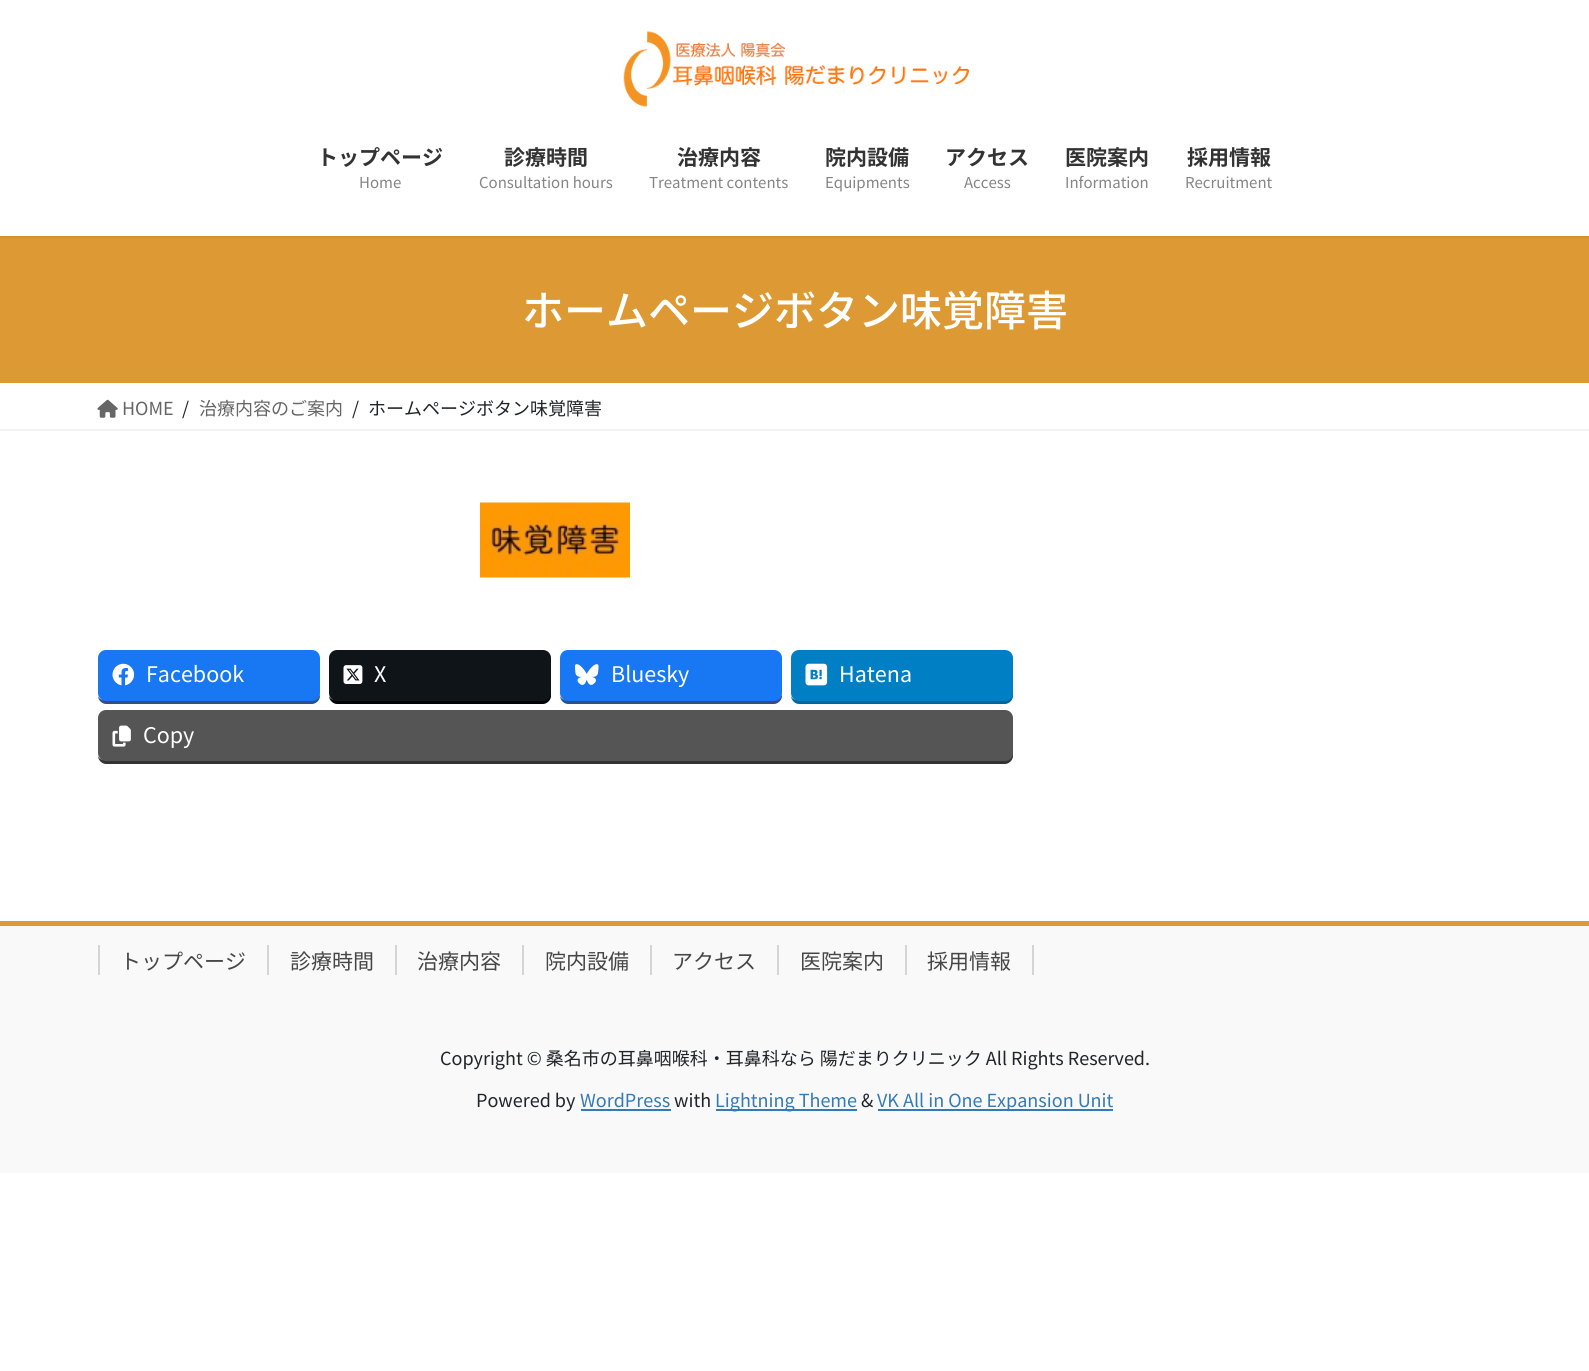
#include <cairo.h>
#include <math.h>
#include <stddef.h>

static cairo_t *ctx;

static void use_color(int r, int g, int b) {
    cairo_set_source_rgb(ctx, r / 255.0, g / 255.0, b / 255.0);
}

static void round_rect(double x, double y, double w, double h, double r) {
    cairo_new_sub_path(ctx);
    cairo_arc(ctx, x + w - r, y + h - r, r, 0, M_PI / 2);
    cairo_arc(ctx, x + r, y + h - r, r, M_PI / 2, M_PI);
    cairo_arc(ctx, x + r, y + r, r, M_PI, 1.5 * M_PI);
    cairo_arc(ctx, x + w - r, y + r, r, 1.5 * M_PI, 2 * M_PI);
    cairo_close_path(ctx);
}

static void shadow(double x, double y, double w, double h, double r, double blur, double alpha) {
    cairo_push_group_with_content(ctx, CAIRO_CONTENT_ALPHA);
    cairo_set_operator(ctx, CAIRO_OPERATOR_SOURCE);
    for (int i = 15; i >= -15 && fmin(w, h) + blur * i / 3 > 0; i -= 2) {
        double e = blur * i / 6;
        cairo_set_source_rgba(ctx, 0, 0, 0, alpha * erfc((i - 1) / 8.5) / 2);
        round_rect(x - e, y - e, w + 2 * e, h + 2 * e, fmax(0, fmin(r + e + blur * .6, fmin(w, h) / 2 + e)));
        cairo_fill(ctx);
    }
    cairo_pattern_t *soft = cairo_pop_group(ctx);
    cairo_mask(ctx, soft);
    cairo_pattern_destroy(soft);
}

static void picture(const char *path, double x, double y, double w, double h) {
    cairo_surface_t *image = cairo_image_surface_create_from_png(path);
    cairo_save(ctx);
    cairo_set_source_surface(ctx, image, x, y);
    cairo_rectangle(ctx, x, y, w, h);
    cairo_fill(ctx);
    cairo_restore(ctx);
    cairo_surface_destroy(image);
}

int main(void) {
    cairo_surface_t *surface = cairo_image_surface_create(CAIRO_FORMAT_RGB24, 1589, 1371);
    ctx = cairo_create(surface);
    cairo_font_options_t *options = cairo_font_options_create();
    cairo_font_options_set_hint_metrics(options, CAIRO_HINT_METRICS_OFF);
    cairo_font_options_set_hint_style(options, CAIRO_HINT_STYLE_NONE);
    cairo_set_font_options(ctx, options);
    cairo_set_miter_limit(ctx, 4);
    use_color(255, 255, 255);
    cairo_paint(ctx);
    use_color(221, 153, 51);
    cairo_rectangle(ctx, 0, 236, 1589, 147);
    cairo_fill(ctx);
    use_color(0, 0, 0);
    shadow(0, 2, 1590, 235, 0, 2, 0.1);
    use_color(255, 255, 255);
    cairo_rectangle(ctx, 0, 0, 1589, 236);
    cairo_fill(ctx);
    picture("img1.png", 623, 31, 346, 76);
    cairo_select_font_face(ctx, "Noto Sans JP", CAIRO_FONT_SLANT_NORMAL, CAIRO_FONT_WEIGHT_BOLD);
    cairo_set_font_size(ctx, 21);
    use_color(51, 51, 51);
    cairo_move_to(ctx, 317, 165);
    cairo_show_text(ctx, "トップページ");
    cairo_select_font_face(ctx, "Noto Sans JP", CAIRO_FONT_SLANT_NORMAL, CAIRO_FONT_WEIGHT_NORMAL);
    cairo_set_font_size(ctx, 15);
    use_color(133, 133, 133);
    cairo_move_to(ctx, 359, 188);
    cairo_show_text(ctx, "Home");
    cairo_select_font_face(ctx, "Noto Sans JP", CAIRO_FONT_SLANT_NORMAL, CAIRO_FONT_WEIGHT_BOLD);
    cairo_set_font_size(ctx, 21);
    use_color(51, 51, 51);
    cairo_move_to(ctx, 504, 165);
    cairo_show_text(ctx, "診療時間");
    cairo_select_font_face(ctx, "Noto Sans JP", CAIRO_FONT_SLANT_NORMAL, CAIRO_FONT_WEIGHT_NORMAL);
    cairo_set_font_size(ctx, 15);
    use_color(133, 133, 133);
    cairo_move_to(ctx, 479, 188);
    cairo_show_text(ctx, "Consultation hours");
    cairo_select_font_face(ctx, "Noto Sans JP", CAIRO_FONT_SLANT_NORMAL, CAIRO_FONT_WEIGHT_BOLD);
    cairo_set_font_size(ctx, 21);
    use_color(51, 51, 51);
    cairo_move_to(ctx, 677, 165);
    cairo_show_text(ctx, "治療内容");
    cairo_select_font_face(ctx, "Noto Sans JP", CAIRO_FONT_SLANT_NORMAL, CAIRO_FONT_WEIGHT_NORMAL);
    cairo_set_font_size(ctx, 15);
    use_color(133, 133, 133);
    cairo_move_to(ctx, 649, 188);
    cairo_show_text(ctx, "Treatment contents");
    cairo_select_font_face(ctx, "Noto Sans JP", CAIRO_FONT_SLANT_NORMAL, CAIRO_FONT_WEIGHT_BOLD);
    cairo_set_font_size(ctx, 21);
    use_color(51, 51, 51);
    cairo_move_to(ctx, 825, 165);
    cairo_show_text(ctx, "院内設備");
    cairo_select_font_face(ctx, "Noto Sans JP", CAIRO_FONT_SLANT_NORMAL, CAIRO_FONT_WEIGHT_NORMAL);
    cairo_set_font_size(ctx, 15);
    use_color(133, 133, 133);
    cairo_move_to(ctx, 825, 188);
    cairo_show_text(ctx, "Equipments");
    cairo_select_font_face(ctx, "Noto Sans JP", CAIRO_FONT_SLANT_NORMAL, CAIRO_FONT_WEIGHT_BOLD);
    cairo_set_font_size(ctx, 21);
    use_color(51, 51, 51);
    cairo_move_to(ctx, 945, 165);
    cairo_show_text(ctx, "アクセス");
    cairo_select_font_face(ctx, "Noto Sans JP", CAIRO_FONT_SLANT_NORMAL, CAIRO_FONT_WEIGHT_NORMAL);
    cairo_set_font_size(ctx, 15);
    use_color(133, 133, 133);
    cairo_move_to(ctx, 964, 188);
    cairo_show_text(ctx, "Access");
    cairo_select_font_face(ctx, "Noto Sans JP", CAIRO_FONT_SLANT_NORMAL, CAIRO_FONT_WEIGHT_BOLD);
    cairo_set_font_size(ctx, 21);
    use_color(51, 51, 51);
    cairo_move_to(ctx, 1065, 165);
    cairo_show_text(ctx, "医院案内");
    cairo_select_font_face(ctx, "Noto Sans JP", CAIRO_FONT_SLANT_NORMAL, CAIRO_FONT_WEIGHT_NORMAL);
    cairo_set_font_size(ctx, 15);
    use_color(133, 133, 133);
    cairo_move_to(ctx, 1065, 188);
    cairo_show_text(ctx, "Information");
    cairo_select_font_face(ctx, "Noto Sans JP", CAIRO_FONT_SLANT_NORMAL, CAIRO_FONT_WEIGHT_BOLD);
    cairo_set_font_size(ctx, 21);
    use_color(51, 51, 51);
    cairo_move_to(ctx, 1187, 165);
    cairo_show_text(ctx, "採用情報");
    cairo_select_font_face(ctx, "Noto Sans JP", CAIRO_FONT_SLANT_NORMAL, CAIRO_FONT_WEIGHT_NORMAL);
    cairo_set_font_size(ctx, 15);
    use_color(133, 133, 133);
    cairo_move_to(ctx, 1185, 188);
    cairo_show_text(ctx, "Recruitment");
    cairo_select_font_face(ctx, "Noto Sans JP Medium", CAIRO_FONT_SLANT_NORMAL, CAIRO_FONT_WEIGHT_NORMAL);
    cairo_set_font_size(ctx, 42);
    use_color(255, 255, 255);
    cairo_move_to(ctx, 522, 326);
    cairo_show_text(ctx, "ホームページボタン味覚障害");
    use_color(242, 242, 242);
    cairo_rectangle(ctx, 0, 429, 1589, 2);
    cairo_fill(ctx);
    picture("img2.png", 97, 399, 21, 19);
    cairo_select_font_face(ctx, "Noto Sans JP", CAIRO_FONT_SLANT_NORMAL, CAIRO_FONT_WEIGHT_NORMAL);
    cairo_set_font_size(ctx, 18);
    use_color(102, 102, 102);
    cairo_move_to(ctx, 122, 415);
    cairo_show_text(ctx, "HOME");
    use_color(33, 37, 41);
    cairo_move_to(ctx, 182, 415);
    cairo_show_text(ctx, "/");
    use_color(102, 102, 102);
    cairo_move_to(ctx, 199, 415);
    cairo_show_text(ctx, "治療内容のご案内");
    use_color(33, 37, 41);
    cairo_move_to(ctx, 352, 415);
    cairo_show_text(ctx, "/");
    cairo_move_to(ctx, 368, 415);
    cairo_show_text(ctx, "ホームページボタン味覚障害");
    picture("img3.png", 480, 502, 150, 76);
    use_color(52, 78, 132);
    cairo_new_path(ctx);
    cairo_move_to(ctx, 98, 696);
    cairo_curve_to(ctx, 98, 700, 102, 704, 106, 704);
    cairo_line_to(ctx, 312, 704);
    cairo_curve_to(ctx, 316, 704, 320, 700, 320, 696);
    cairo_line_to(ctx, 320, 661);
    cairo_line_to(ctx, 320, 658);
    cairo_line_to(ctx, 320, 693);
    cairo_curve_to(ctx, 320, 697, 316, 700, 312, 700);
    cairo_line_to(ctx, 105, 700);
    cairo_curve_to(ctx, 102, 700, 99, 699, 98, 696);
    cairo_close_path(ctx);
    cairo_fill(ctx);
    use_color(24, 119, 242);
    round_rect(98, 650, 222, 51, 8);
    cairo_fill(ctx);
    picture("img4.png", 112, 663, 23, 23);
    cairo_set_font_size(ctx, 21.5);
    use_color(255, 255, 255);
    cairo_move_to(ctx, 146, 682);
    cairo_show_text(ctx, "Facebook");
    use_color(0, 0, 0);
    cairo_new_path(ctx);
    cairo_move_to(ctx, 329, 696);
    cairo_curve_to(ctx, 329, 700, 333, 704, 337, 704);
    cairo_line_to(ctx, 543, 704);
    cairo_curve_to(ctx, 547, 704, 551, 700, 551, 696);
    cairo_line_to(ctx, 551, 661);
    cairo_line_to(ctx, 550, 658);
    cairo_line_to(ctx, 550, 693);
    cairo_curve_to(ctx, 550, 697, 547, 700, 543, 700);
    cairo_line_to(ctx, 336, 700);
    cairo_curve_to(ctx, 333, 700, 330, 699, 329, 696);
    cairo_close_path(ctx);
    cairo_fill(ctx);
    use_color(15, 20, 25);
    round_rect(329, 650, 222, 51, 8);
    cairo_fill(ctx);
    picture("img5.png", 343, 665, 20, 19);
    use_color(255, 255, 255);
    cairo_move_to(ctx, 374, 682);
    cairo_show_text(ctx, "X");
    use_color(52, 78, 132);
    cairo_new_path(ctx);
    cairo_move_to(ctx, 560, 696);
    cairo_curve_to(ctx, 560, 700, 564, 704, 568, 704);
    cairo_line_to(ctx, 774, 704);
    cairo_curve_to(ctx, 778, 704, 782, 700, 782, 696);
    cairo_line_to(ctx, 782, 661);
    cairo_line_to(ctx, 782, 658);
    cairo_line_to(ctx, 782, 693);
    cairo_curve_to(ctx, 782, 697, 778, 700, 774, 700);
    cairo_line_to(ctx, 567, 700);
    cairo_curve_to(ctx, 564, 700, 561, 699, 560, 696);
    cairo_close_path(ctx);
    cairo_fill(ctx);
    use_color(24, 119, 242);
    round_rect(560, 650, 222, 51, 8);
    cairo_fill(ctx);
    picture("img6.png", 574, 664, 25, 21);
    use_color(255, 255, 255);
    cairo_move_to(ctx, 611, 682);
    cairo_show_text(ctx, "Bluesky");
    use_color(0, 103, 159);
    cairo_new_path(ctx);
    cairo_move_to(ctx, 791, 696);
    cairo_curve_to(ctx, 791, 700, 795, 704, 799, 704);
    cairo_line_to(ctx, 1005, 704);
    cairo_curve_to(ctx, 1009, 704, 1013, 700, 1013, 696);
    cairo_line_to(ctx, 1013, 661);
    cairo_line_to(ctx, 1012, 658);
    cairo_line_to(ctx, 1012, 693);
    cairo_curve_to(ctx, 1012, 697, 1009, 700, 1005, 700);
    cairo_line_to(ctx, 798, 700);
    cairo_curve_to(ctx, 795, 700, 792, 699, 791, 696);
    cairo_close_path(ctx);
    cairo_fill(ctx);
    use_color(0, 127, 197);
    round_rect(791, 650, 222, 51, 8);
    cairo_fill(ctx);
    picture("img7.png", 805, 663, 23, 23);
    use_color(255, 255, 255);
    cairo_move_to(ctx, 839, 682);
    cairo_show_text(ctx, "Hatena");
    use_color(51, 51, 51);
    cairo_new_path(ctx);
    cairo_move_to(ctx, 98, 756);
    cairo_curve_to(ctx, 98, 760, 102, 764, 106, 764);
    cairo_line_to(ctx, 1005, 764);
    cairo_curve_to(ctx, 1009, 764, 1013, 760, 1013, 756);
    cairo_line_to(ctx, 1013, 721);
    cairo_line_to(ctx, 1012, 718);
    cairo_line_to(ctx, 1012, 753);
    cairo_curve_to(ctx, 1012, 757, 1009, 760, 1005, 760);
    cairo_line_to(ctx, 105, 760);
    cairo_curve_to(ctx, 102, 760, 99, 759, 98, 756);
    cairo_close_path(ctx);
    cairo_fill(ctx);
    use_color(85, 85, 85);
    round_rect(98, 710, 915, 51, 8);
    cairo_fill(ctx);
    picture("img8.png", 112, 725, 19, 22);
    use_color(255, 255, 255);
    cairo_move_to(ctx, 143, 743);
    cairo_show_text(ctx, "Copy");
    use_color(249, 249, 249);
    cairo_rectangle(ctx, 0, 926, 1589, 247);
    cairo_fill(ctx);
    use_color(221, 153, 51);
    cairo_rectangle(ctx, 0, 921, 1589, 5);
    cairo_fill(ctx);
    cairo_set_font_size(ctx, 21);
    use_color(70, 70, 70);
    cairo_move_to(ctx, 120, 969);
    cairo_show_text(ctx, "トップページ");
    use_color(212, 212, 212);
    cairo_rectangle(ctx, 98, 945, 2, 30);
    cairo_fill(ctx);
    use_color(70, 70, 70);
    cairo_move_to(ctx, 290, 969);
    cairo_show_text(ctx, "診療時間");
    use_color(212, 212, 212);
    cairo_rectangle(ctx, 267, 945, 2, 30);
    cairo_fill(ctx);
    use_color(70, 70, 70);
    cairo_move_to(ctx, 417, 969);
    cairo_show_text(ctx, "治療内容");
    use_color(212, 212, 212);
    cairo_rectangle(ctx, 395, 945, 2, 30);
    cairo_fill(ctx);
    use_color(70, 70, 70);
    cairo_move_to(ctx, 545, 969);
    cairo_show_text(ctx, "院内設備");
    use_color(212, 212, 212);
    cairo_rectangle(ctx, 522, 945, 2, 30);
    cairo_fill(ctx);
    use_color(70, 70, 70);
    cairo_move_to(ctx, 672, 969);
    cairo_show_text(ctx, "アクセス");
    use_color(212, 212, 212);
    cairo_rectangle(ctx, 650, 945, 2, 30);
    cairo_fill(ctx);
    use_color(70, 70, 70);
    cairo_move_to(ctx, 800, 969);
    cairo_show_text(ctx, "医院案内");
    use_color(212, 212, 212);
    cairo_rectangle(ctx, 777, 945, 2, 30);
    cairo_fill(ctx);
    use_color(70, 70, 70);
    cairo_move_to(ctx, 927, 969);
    cairo_show_text(ctx, "採用情報");
    use_color(212, 212, 212);
    cairo_rectangle(ctx, 1032, 945, 2, 30);
    cairo_fill(ctx);
    cairo_rectangle(ctx, 905, 945, 2, 30);
    cairo_fill(ctx);
    cairo_set_font_size(ctx, 18);
    use_color(33, 37, 41);
    cairo_move_to(ctx, 440, 1065);
    cairo_show_text(ctx, "Copyright © 桑名市の耳鼻咽喉科・耳鼻科なら 陽だまりクリニック All Rights Reserved.");
    cairo_move_to(ctx, 476, 1107);
    cairo_show_text(ctx, "Powered by");
    use_color(51, 122, 183);
    cairo_move_to(ctx, 580, 1107);
    cairo_show_text(ctx, "WordPress");
    cairo_rectangle(ctx, 581, 1109, 90, 2);
    cairo_fill(ctx);
    use_color(33, 37, 41);
    cairo_move_to(ctx, 674, 1107);
    cairo_show_text(ctx, "with");
    use_color(51, 122, 183);
    cairo_rectangle(ctx, 716, 1109, 141, 2);
    cairo_fill(ctx);
    cairo_move_to(ctx, 715, 1107);
    cairo_show_text(ctx, "Lightning Theme");
    use_color(33, 37, 41);
    cairo_move_to(ctx, 861, 1107);
    cairo_show_text(ctx, "&");
    use_color(51, 122, 183);
    cairo_rectangle(ctx, 878, 1109, 235, 2);
    cairo_fill(ctx);
    cairo_move_to(ctx, 877, 1107);
    cairo_show_text(ctx, "VK All in One Expansion Unit");
    cairo_surface_write_to_png(surface, "result.png");
    cairo_font_options_destroy(options);
    cairo_destroy(ctx);
    cairo_surface_destroy(surface);
    return 0;
}
